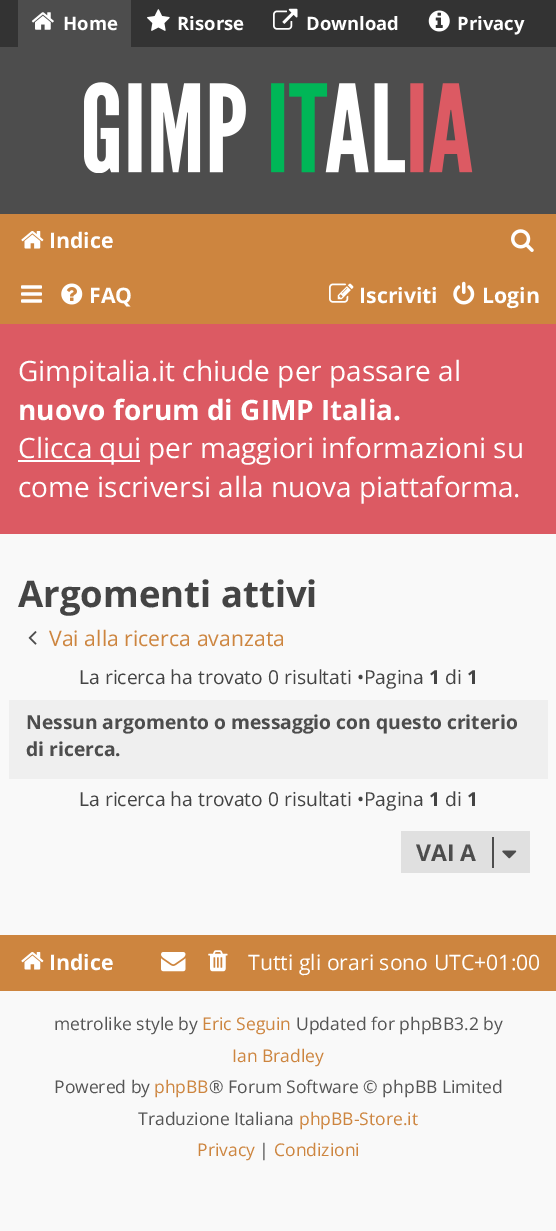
%!PS
<< /PageSize [556 1231] >> setpagedevice
/co { dup -16 bitshift 255 div exch dup -8 bitshift 255 and 255 div exch 255 and 255 div setrgbcolor } def
/fn { [ exch dup neg 0 0 3 -1 roll 0 0 ] selectfont } def
/tx { co fn moveto show } def
/bx { co rectfill } def
/im { 5 dict begin { /h /w /y /x /name } { exch def } forall
  gsave x y translate w h scale
  w h 8 [w 0 0 h 0 0] name (r) file false 3 colorimage grestore end } def
0 1231 translate 1 -1 scale
4 setmiterlimit
0 0 556 1231 16#F9F9F9 bx
0 0 556 47 16#333333 bx
18 0 113 47 16#4D4D4D bx
(media/1.raw) 31 12 23 18 im
(media/2.raw) 147 9 23 22 im
(media/3.raw) 273 8 25 22 im
(media/4.raw) 428 10 22 22 im
0 47 556 167 16#4D4D4D bx
(media/5.raw) 84 82 389 91 im
0 214 556 110 16#CD853F bx
(media/6.raw) 21 231 23 18 im
(media/7.raw) 511 229 23 23 im
(media/8.raw) 21 285 21 18 im
(media/9.raw) 61 283 22 22 im
(media/10.raw) 329 283 25 20 im
(media/11.raw) 453 281 22 24 im
0 324 556 210 16#DC5A63 bx
18 460 122 2 16#FFFFFF bx
(media/12.raw) 28 631 9 14 im
9 700 539 79 16#EFEFEF bx
401 831 129 42 16#E0E0E0 bx
492 837 2 31 16#4D4D4D bx
(media/13.raw) 502 850 15 9 im
0 935 556 56 16#CD853F bx
(media/6.raw) 21 952 23 18 im
(media/14.raw) 161 952 25 20 im
(media/15.raw) 208 950 20 22 im
(Home) 63 30 /OpenSans-Bold 18.5 16#FFFFFF tx
(Risorse) 177 30 /OpenSans-Bold 18.5 16#FFFFFF tx
(Download) 306 30 /OpenSans-Bold 18.5 16#FFFFFF tx
(Privacy) 457 30 /OpenSans-Bold 18.5 16#FFFFFF tx
(Indice) 49 248 /OpenSans-Bold 21.25 16#FFFFFF tx
(FAQ) 89 303 /OpenSans-Bold 21.25 16#FFFFFF tx
(Iscriviti) 359 303 /OpenSans-Bold 21.25 16#FFFFFF tx
(Login) 482 303 /OpenSans-Bold 21.25 16#FFFFFF tx
(Gimpitalia.it chiude per passare al) 18 381 /OpenSans-Regular 28 16#FFFFFF tx
(nuovo forum di GIMP Italia.) 18 420 /OpenSans-Bold 28 16#FFFFFF tx
(Clicca qui per maggiori informazioni su) 18 458 /OpenSans-Regular 28 16#FFFFFF tx
(come iscriversi alla nuova piattaforma.) 18 497 /OpenSans-Regular 28 16#FFFFFF tx
(Argomenti attivi) 18 607 /OpenSans-Bold 36.5 16#444444 tx
(Vai alla ricerca avanzata) 49 646 /OpenSans-Regular 21.25 16#CD853F tx
(La ricerca ha trovato 0 risultati •Pagina) 79 684 /OpenSans-Regular 19.25 16#444444 tx
(1) 429 684 /OpenSans-Bold 19.25 16#444444 tx
(di) 445 684 /OpenSans-Regular 19.25 16#444444 tx
(1) 467 684 /OpenSans-Bold 19.25 16#444444 tx
(Nessun argomento o messaggio con questo criterio) 26 729 /OpenSans-Bold 19.25 16#4D4D4D tx
(di ricerca.) 26 756 /OpenSans-Bold 19.25 16#4D4D4D tx
(La ricerca ha trovato 0 risultati •Pagina) 79 806 /OpenSans-Regular 19.25 16#444444 tx
(1) 429 806 /OpenSans-Bold 19.25 16#444444 tx
(di) 445 806 /OpenSans-Regular 19.25 16#444444 tx
(1) 467 806 /OpenSans-Bold 19.25 16#444444 tx
(VAI A) 416 861 /OpenSans-Bold 23 16#4D4D4D tx
(Indice) 49 970 /OpenSans-Bold 21.25 16#FFFFFF tx
(Tutti gli orari sono UTC+01:00) 248 970 /OpenSans-Regular 21.25 16#FFFFFF tx
(metrolike style by) 54 1030 /OpenSans-Regular 17.5 16#555555 tx
(Eric Seguin) 202 1030 /OpenSans-Regular 17.5 16#CD853F tx
(Updated for phpBB3.2 by) 296 1030 /OpenSans-Regular 17.5 16#555555 tx
(Ian Bradley) 232 1062 /OpenSans-Regular 17.5 16#CD853F tx
(Powered by) 54 1093 /OpenSans-Regular 17.5 16#555555 tx
(phpBB) 154 1093 /OpenSans-Regular 17.5 16#CD853F tx
(® Forum Software © phpBB Limited) 209 1093 /OpenSans-Regular 17.5 16#555555 tx
(Traduzione Italiana) 138 1125 /OpenSans-Regular 17.5 16#555555 tx
(phpBB-Store.it) 299 1125 /OpenSans-Regular 17.5 16#CD853F tx
(Privacy) 197 1156 /OpenSans-Regular 17.5 16#CD853F tx
(|) 259 1156 /OpenSans-Regular 17.5 16#555555 tx
(Condizioni) 274 1156 /OpenSans-Regular 17.5 16#CD853F tx
showpage
